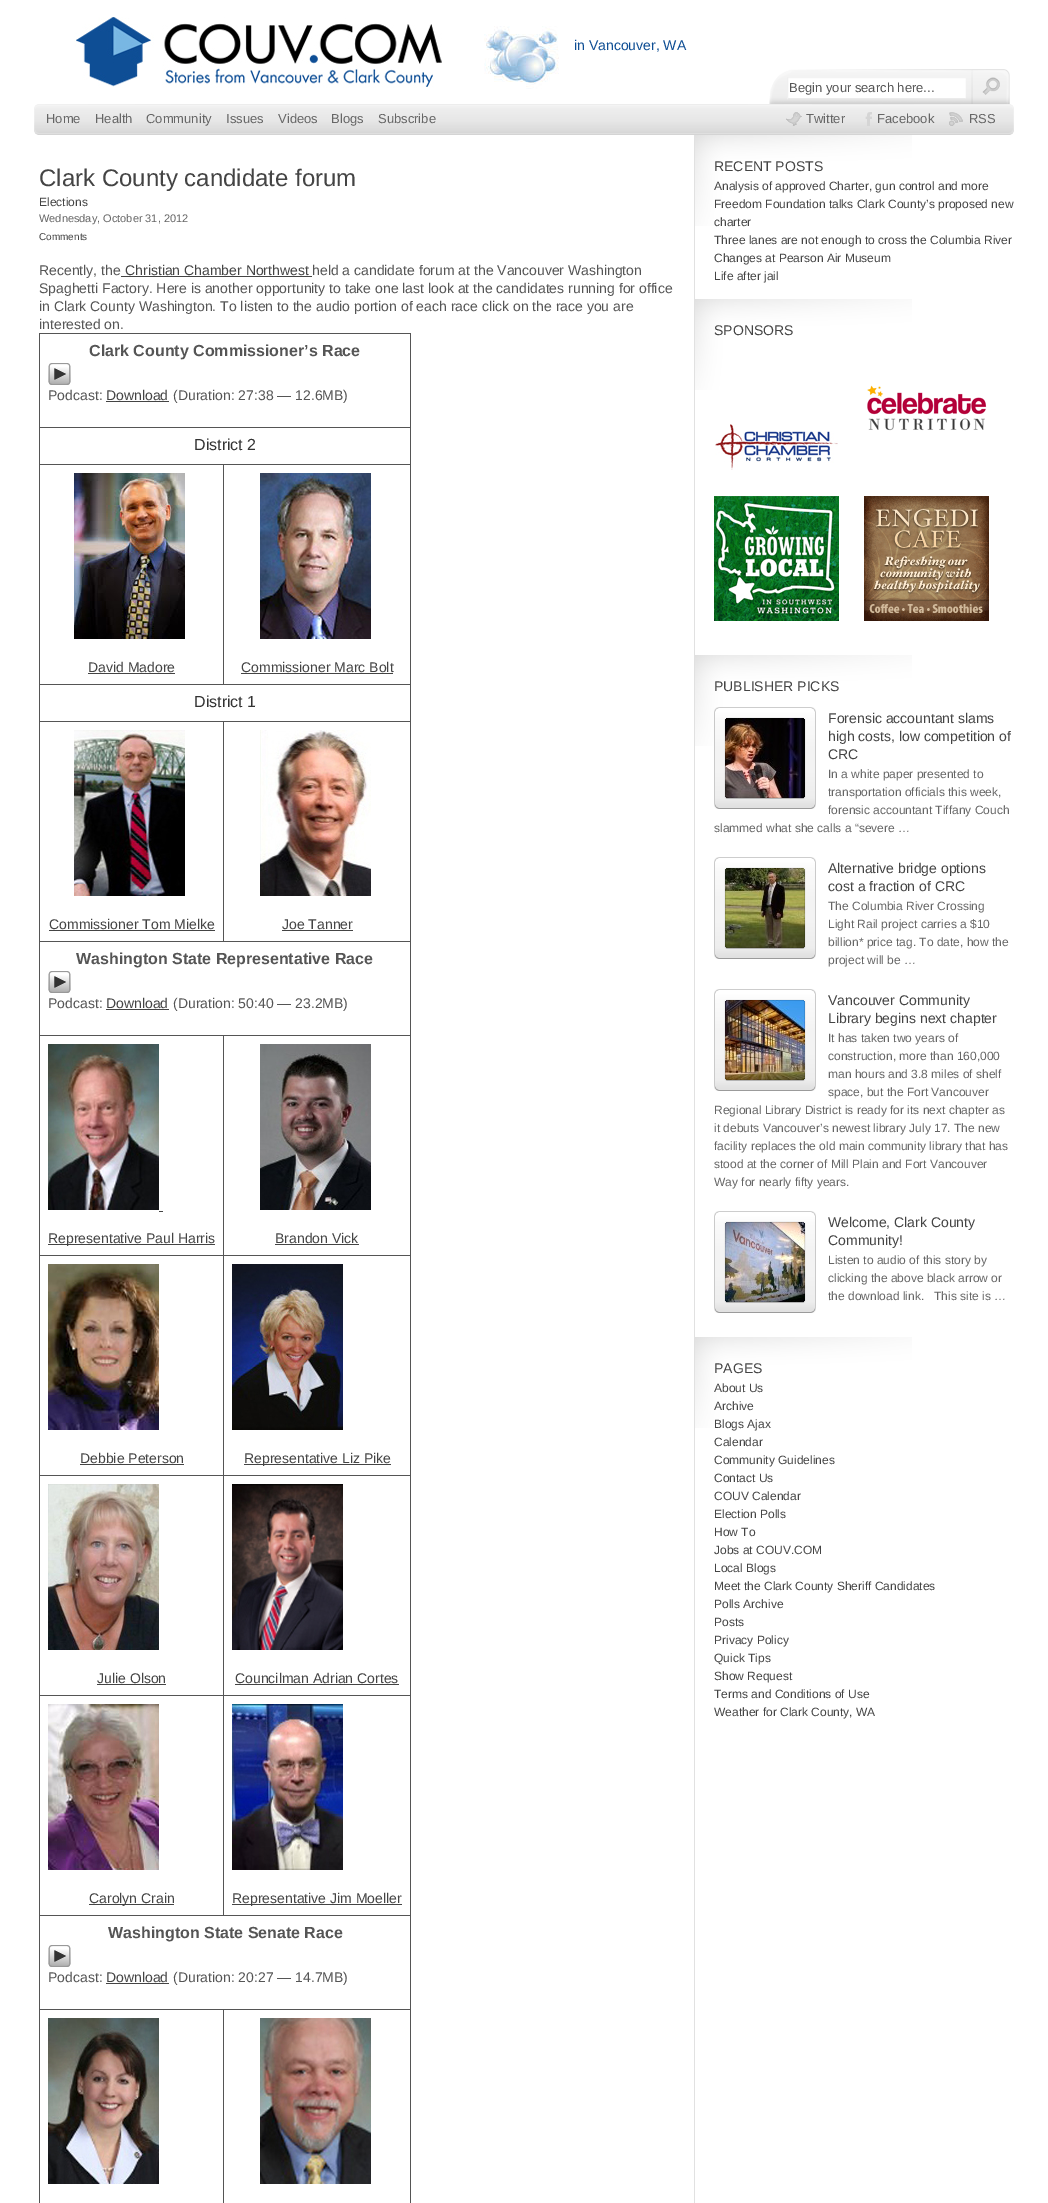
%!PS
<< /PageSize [1048 2203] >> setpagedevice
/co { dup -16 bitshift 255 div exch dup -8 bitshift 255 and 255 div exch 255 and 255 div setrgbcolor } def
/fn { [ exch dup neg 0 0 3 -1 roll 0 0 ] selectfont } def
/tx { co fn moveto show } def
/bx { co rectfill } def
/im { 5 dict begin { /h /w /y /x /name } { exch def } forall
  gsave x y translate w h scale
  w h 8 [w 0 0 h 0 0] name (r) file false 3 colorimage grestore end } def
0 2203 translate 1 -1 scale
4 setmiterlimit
0 0 1048 2203 16#FFFFFF bx
(media/1.raw) 74 17 368 71 im
(media/2.raw) 484 26 75 63 im
(media/3.raw) 769 69 241 35 im
(media/4.raw) 982 77 18 18 im
(media/5.raw) 34 104 980 31 im
(media/6.raw) 786 112 16 14 im
(media/7.raw) 865 112 7 14 im
(media/8.raw) 949 112 14 14 im
694 135 1 2068 16#E1E1E1 bx
121 276 191 1 16#444444 bx
39 333 372 1 16#555555 bx
39 427 372 1 16#555555 bx
223 464 188 1 16#555555 bx
39 684 372 1 16#555555 bx
223 721 188 1 16#555555 bx
39 941 372 1 16#555555 bx
223 1035 188 1 16#555555 bx
223 1255 188 1 16#555555 bx
223 1475 188 1 16#555555 bx
223 1695 188 1 16#555555 bx
39 1915 372 1 16#555555 bx
223 2009 188 1 16#555555 bx
410 2009 1 194 16#555555 bx
410 1915 1 95 16#555555 bx
410 1695 1 221 16#555555 bx
410 1475 1 221 16#555555 bx
410 1255 1 221 16#555555 bx
410 1035 1 221 16#555555 bx
410 941 1 95 16#555555 bx
410 721 1 221 16#555555 bx
410 684 1 38 16#555555 bx
410 464 1 221 16#555555 bx
410 427 1 38 16#555555 bx
410 333 1 95 16#555555 bx
223 464 1 221 16#555555 bx
39 464 185 1 16#555555 bx
223 721 1 221 16#555555 bx
39 721 185 1 16#555555 bx
223 1695 1 221 16#555555 bx
39 1695 185 1 16#555555 bx
223 1475 1 221 16#555555 bx
39 1475 185 1 16#555555 bx
223 1255 1 221 16#555555 bx
39 1255 185 1 16#555555 bx
223 1035 1 221 16#555555 bx
39 1035 185 1 16#555555 bx
223 2009 1 194 16#555555 bx
39 2009 185 1 16#555555 bx
39 2009 1 194 16#555555 bx
39 1915 1 95 16#555555 bx
39 1695 1 221 16#555555 bx
39 1475 1 221 16#555555 bx
39 1255 1 221 16#555555 bx
39 1035 1 221 16#555555 bx
39 941 1 95 16#555555 bx
39 721 1 221 16#555555 bx
39 684 1 38 16#555555 bx
39 464 1 221 16#555555 bx
39 427 1 38 16#555555 bx
39 333 1 95 16#555555 bx
(media/9.raw) 48 363 23 22 im
106 401 63 1 16#444444 bx
(media/10.raw) 74 473 111 166 im
88 673 87 1 16#444444 bx
(media/11.raw) 260 473 111 166 im
241 673 152 1 16#444444 bx
(media/12.raw) 74 730 111 166 im
49 930 166 1 16#444444 bx
(media/13.raw) 260 730 111 166 im
282 930 71 1 16#444444 bx
(media/9.raw) 48 971 23 22 im
106 1009 63 1 16#444444 bx
(media/14.raw) 48 1044 111 166 im
159 1211 4 1 16#444444 bx
48 1244 167 1 16#444444 bx
(media/15.raw) 260 1044 111 166 im
275 1244 84 1 16#444444 bx
(media/16.raw) 48 1264 111 166 im
80 1464 104 1 16#444444 bx
(media/17.raw) 232 1264 111 166 im
244 1464 147 1 16#444444 bx
(media/18.raw) 48 1484 111 166 im
97 1684 69 1 16#444444 bx
(media/19.raw) 232 1484 111 166 im
235 1684 164 1 16#444444 bx
(media/20.raw) 48 1704 111 166 im
89 1904 85 1 16#444444 bx
(media/21.raw) 232 1704 111 166 im
232 1904 170 1 16#444444 bx
(media/9.raw) 48 1945 23 22 im
106 1983 63 1 16#444444 bx
(media/22.raw) 48 2018 111 166 im
(media/23.raw) 260 2018 111 166 im
(media/24.raw) 695 135 217 91 im
(media/24.raw) 695 299 217 91 im
(media/25.raw) 867 385 120 46 im
(media/26.raw) 715 424 123 46 im
(media/27.raw) 714 496 125 125 im
(media/28.raw) 864 496 125 125 im
(media/24.raw) 695 655 217 91 im
(media/30.raw) 725 718 80 80 im
(media/29.raw) 714 707 102 102 im
(media/32.raw) 725 868 80 80 im
(media/31.raw) 714 857 102 102 im
(media/34.raw) 725 1000 80 80 im
(media/33.raw) 714 989 102 102 im
(media/36.raw) 725 1222 80 80 im
(media/35.raw) 714 1211 102 102 im
(media/24.raw) 695 1337 217 91 im
(in Vancouver, WA) 574 50 /LiberationSans-Regular 14 16#0E4E94 tx
(Begin your search here...) 789 92 /LiberationSans-Regular 13 16#555555 tx
(Home) 46 123 /LiberationSans-Regular 13 16#666666 tx
(Health) 95 123 /LiberationSans-Regular 13 16#666666 tx
(Community) 146 123 /LiberationSans-Regular 13 16#666666 tx
(Issues) 226 123 /LiberationSans-Regular 13 16#666666 tx
(Videos) 278 123 /LiberationSans-Regular 13 16#666666 tx
(Blogs) 331 123 /LiberationSans-Regular 13 16#666666 tx
(Subscribe) 378 123 /LiberationSans-Regular 13 16#666666 tx
(Twitter) 806 123 /LiberationSans-Regular 13 16#666666 tx
(Facebook) 877 123 /LiberationSans-Regular 13 16#666666 tx
(RSS) 969 123 /LiberationSans-Regular 13 16#666666 tx
(Clark County candidate forum) 39 186 /LiberationSans-Regular 24 16#444444 tx
(Elections) 39 206 /LiberationSans-Regular 12 16#444444 tx
(Wednesday, October 31, 2012) 39 222 /LiberationSans-Regular 11 16#666666 tx
(Comments) 39 240 /LiberationSans-Regular 10 16#444444 tx
(Recently, the) 39 275 /LiberationSans-Regular 14 16#555555 tx
(Christian Chamber Northwest) 125 275 /LiberationSans-Regular 14 16#444444 tx
(held a candidate forum at the Vancouver Washington) 312 275 /LiberationSans-Regular 14 16#555555 tx
(Spaghetti Factory. Here is another opportunity to take one last look at the candidates running for office) 39 293 /LiberationSans-Regular 14 16#555555 tx
(in Clark County Washington. To listen to the audio portion of each race click on the race you are) 39 311 /LiberationSans-Regular 14 16#555555 tx
(interested on.) 39 329 /LiberationSans-Regular 14 16#555555 tx
(Clark County Commissioner’s Race) 89 356 /LiberationSans-Bold 16 16#555555 tx
(Podcast:) 48 400 /LiberationSans-Regular 14 16#555555 tx
(Download) 106 400 /LiberationSans-Regular 14 16#444444 tx
(\(Duration: 27:38 — 12.6MB\)) 173 400 /LiberationSans-Regular 14 16#555555 tx
(District 2) 194 450 /LiberationSans-Regular 16 16#333333 tx
(David Madore) 88 672 /LiberationSans-Regular 14 16#444444 tx
(Commissioner Marc Bolt) 241 672 /LiberationSans-Regular 14 16#444444 tx
(District 1) 194 707 /LiberationSans-Regular 16 16#333333 tx
(Commissioner Tom Mielke) 49 929 /LiberationSans-Regular 14 16#444444 tx
(Joe Tanner) 282 929 /LiberationSans-Regular 14 16#444444 tx
(Washington State Representative Race) 76 964 /LiberationSans-Bold 16 16#555555 tx
(Podcast:) 48 1008 /LiberationSans-Regular 14 16#555555 tx
(Download) 106 1008 /LiberationSans-Regular 14 16#444444 tx
(\(Duration: 50:40 — 23.2MB\)) 173 1008 /LiberationSans-Regular 14 16#555555 tx
(Representative Paul Harris) 48 1243 /LiberationSans-Regular 14 16#444444 tx
(Brandon Vick) 275 1243 /LiberationSans-Regular 14 16#444444 tx
(Debbie Peterson) 80 1463 /LiberationSans-Regular 14 16#444444 tx
(Representative Liz Pike) 244 1463 /LiberationSans-Regular 14 16#444444 tx
(Julie Olson) 97 1683 /LiberationSans-Regular 14 16#444444 tx
(Councilman Adrian Cortes) 235 1683 /LiberationSans-Regular 14 16#444444 tx
(Carolyn Crain) 89 1903 /LiberationSans-Regular 14 16#444444 tx
(Representative Jim Moeller) 232 1903 /LiberationSans-Regular 14 16#444444 tx
(Washington State Senate Race) 108 1938 /LiberationSans-Bold 16 16#555555 tx
(Podcast:) 48 1982 /LiberationSans-Regular 14 16#555555 tx
(Download) 106 1982 /LiberationSans-Regular 14 16#444444 tx
(\(Duration: 20:27 — 14.7MB\)) 173 1982 /LiberationSans-Regular 14 16#555555 tx
(RECENT POSTS) 714 171 /LiberationSans-Regular 14 16#444444 tx
(Analysis of approved Charter, gun control and more) 714 190 /LiberationSans-Regular 12 16#444444 tx
(Freedom Foundation talks Clark County’s proposed new) 714 208 /LiberationSans-Regular 12 16#444444 tx
(charter) 714 226 /LiberationSans-Regular 12 16#444444 tx
(Three lanes are not enough to cross the Columbia River) 714 244 /LiberationSans-Regular 12 16#444444 tx
(Changes at Pearson Air Museum) 714 262 /LiberationSans-Regular 12 16#444444 tx
(Life after jail) 714 280 /LiberationSans-Regular 12 16#444444 tx
(SPONSORS) 714 335 /LiberationSans-Regular 14 16#444444 tx
(PUBLISHER PICKS) 714 691 /LiberationSans-Regular 14 16#444444 tx
(Forensic accountant slams) 828 723 /LiberationSans-Regular 14 16#444444 tx
(high costs, low competition of) 828 741 /LiberationSans-Regular 14 16#444444 tx
(CRC) 828 759 /LiberationSans-Regular 14 16#444444 tx
(In a white paper presented to) 828 778 /LiberationSans-Regular 12 16#666666 tx
(transportation officials this week,) 828 796 /LiberationSans-Regular 12 16#666666 tx
(forensic accountant Tiffany Couch) 828 814 /LiberationSans-Regular 12 16#666666 tx
(slammed what she calls a “severe …) 714 832 /LiberationSans-Regular 12 16#666666 tx
(Alternative bridge options) 828 873 /LiberationSans-Regular 14 16#444444 tx
(cost a fraction of CRC) 828 891 /LiberationSans-Regular 14 16#444444 tx
(The Columbia River Crossing) 828 910 /LiberationSans-Regular 12 16#666666 tx
(Light Rail project carries a $10) 828 928 /LiberationSans-Regular 12 16#666666 tx
(billion* price tag. To date, how the) 828 946 /LiberationSans-Regular 12 16#666666 tx
(project will be …) 828 964 /LiberationSans-Regular 12 16#666666 tx
(Vancouver Community) 828 1005 /LiberationSans-Regular 14 16#444444 tx
(Library begins next chapter) 828 1023 /LiberationSans-Regular 14 16#444444 tx
(It has taken two years of) 828 1042 /LiberationSans-Regular 12 16#666666 tx
(construction, more than 160,000) 828 1060 /LiberationSans-Regular 12 16#666666 tx
(man hours and 3.8 miles of shelf) 828 1078 /LiberationSans-Regular 12 16#666666 tx
(space, but the Fort Vancouver) 828 1096 /LiberationSans-Regular 12 16#666666 tx
(Regional Library District is ready for its next chapter as) 714 1114 /LiberationSans-Regular 12 16#666666 tx
(it debuts Vancouver’s newest library July 17. The new) 714 1132 /LiberationSans-Regular 12 16#666666 tx
(facility replaces the old main community library that has) 714 1150 /LiberationSans-Regular 12 16#666666 tx
(stood at the corner of Mill Plain and Fort Vancouver) 714 1168 /LiberationSans-Regular 12 16#666666 tx
(Way for nearly fifty years.) 714 1186 /LiberationSans-Regular 12 16#666666 tx
(Welcome, Clark County) 828 1227 /LiberationSans-Regular 14 16#444444 tx
(Community!) 828 1245 /LiberationSans-Regular 14 16#444444 tx
(Listen to audio of this story by) 828 1264 /LiberationSans-Regular 12 16#666666 tx
(clicking the above black arrow or) 828 1282 /LiberationSans-Regular 12 16#666666 tx
(the download link.   This site is …) 828 1300 /LiberationSans-Regular 12 16#666666 tx
(PAGES) 714 1373 /LiberationSans-Regular 14 16#444444 tx
(About Us) 714 1392 /LiberationSans-Regular 12 16#444444 tx
(Archive) 714 1410 /LiberationSans-Regular 12 16#444444 tx
(Blogs Ajax) 714 1428 /LiberationSans-Regular 12 16#444444 tx
(Calendar) 714 1446 /LiberationSans-Regular 12 16#444444 tx
(Community Guidelines) 714 1464 /LiberationSans-Regular 12 16#444444 tx
(Contact Us) 714 1482 /LiberationSans-Regular 12 16#444444 tx
(COUV Calendar) 714 1500 /LiberationSans-Regular 12 16#444444 tx
(Election Polls) 714 1518 /LiberationSans-Regular 12 16#444444 tx
(How To) 714 1536 /LiberationSans-Regular 12 16#444444 tx
(Jobs at COUV.COM) 714 1554 /LiberationSans-Regular 12 16#444444 tx
(Local Blogs) 714 1572 /LiberationSans-Regular 12 16#444444 tx
(Meet the Clark County Sheriff Candidates) 714 1590 /LiberationSans-Regular 12 16#444444 tx
(Polls Archive) 714 1608 /LiberationSans-Regular 12 16#444444 tx
(Posts) 714 1626 /LiberationSans-Regular 12 16#444444 tx
(Privacy Policy) 714 1644 /LiberationSans-Regular 12 16#444444 tx
(Quick Tips) 714 1662 /LiberationSans-Regular 12 16#444444 tx
(Show Request) 714 1680 /LiberationSans-Regular 12 16#444444 tx
(Terms and Conditions of Use) 714 1698 /LiberationSans-Regular 12 16#444444 tx
(Weather for Clark County, WA) 714 1716 /LiberationSans-Regular 12 16#444444 tx
showpage
